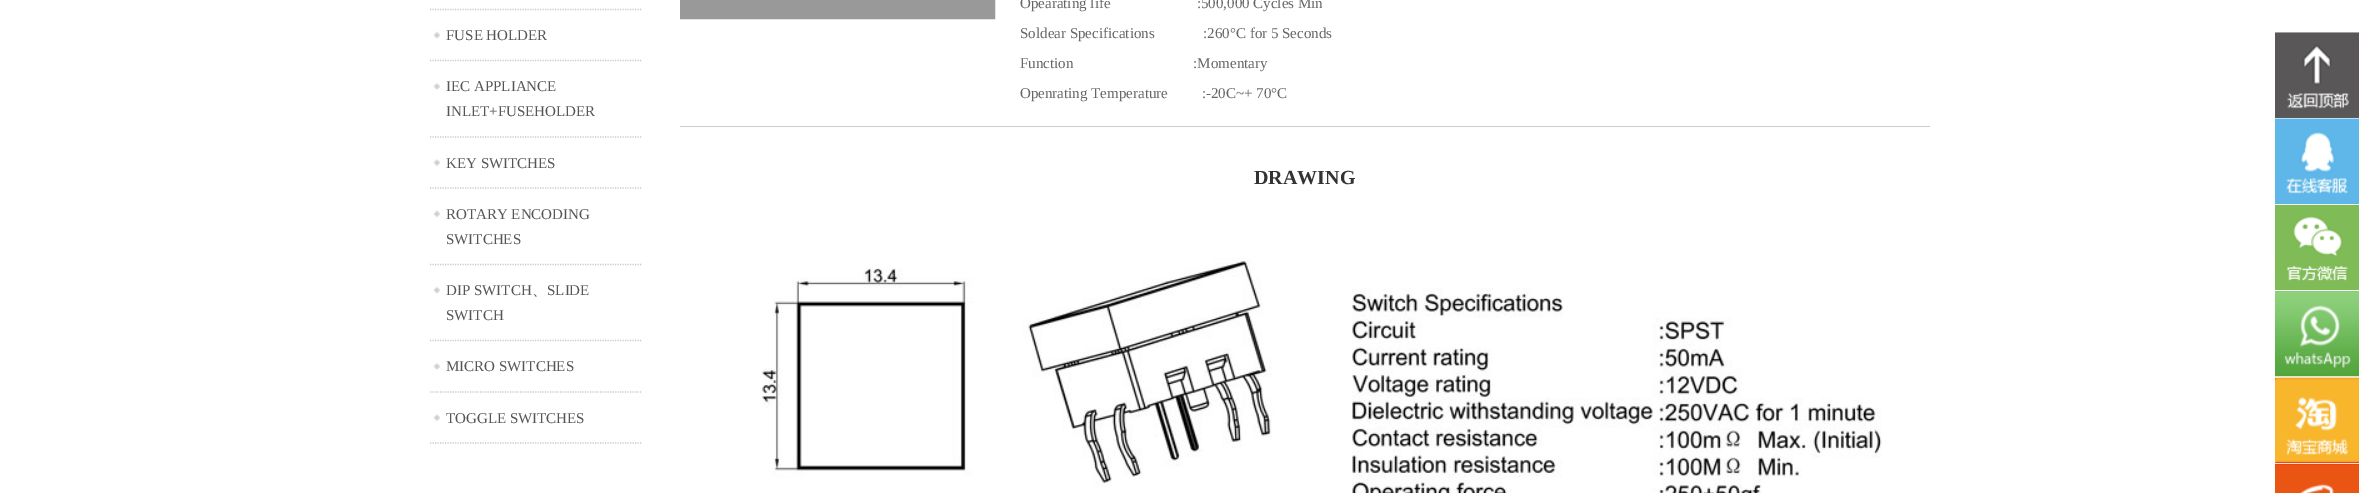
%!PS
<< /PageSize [2359 493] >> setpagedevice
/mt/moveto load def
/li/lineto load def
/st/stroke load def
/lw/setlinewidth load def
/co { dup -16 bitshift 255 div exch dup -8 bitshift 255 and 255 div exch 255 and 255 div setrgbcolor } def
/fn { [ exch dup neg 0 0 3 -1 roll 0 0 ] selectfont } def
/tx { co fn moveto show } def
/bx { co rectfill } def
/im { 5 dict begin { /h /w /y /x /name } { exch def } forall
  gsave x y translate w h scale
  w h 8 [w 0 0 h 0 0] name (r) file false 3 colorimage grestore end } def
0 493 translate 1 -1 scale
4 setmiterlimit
0 0 2359 493 16#FFFFFF bx
16#CBCBCB co
1.2 lw
[1.25 1.25] 0 setdash
430 9.5 mt 642.5 9.5 li st
(media/1.raw) 433 31 7 8 im
430 60.5 mt 642.5 60.5 li st
(media/2.raw) 433 83 7 7 im
430 137 mt 642.5 137 li st
(media/3.raw) 433 159 7 8 im
430 188 mt 642.5 188 li st
(media/4.raw) 433 210 7 8 im
430 264.5 mt 642.5 264.5 li st
(media/1.raw) 433 286 7 8 im
430 340.5 mt 642.5 340.5 li st
(media/2.raw) 433 363 7 7 im
430 392 mt 642.5 392 li st
(media/3.raw) 433 414 7 8 im
430 443 mt 642.5 443 li st
16#999999 co
1 lw
[] 0 setdash
680.5 -.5 314 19 rectstroke
681 0 313 18 16#999999 bx
680 126 1250 1 16#CCCCCC bx
(media/5.raw) 762 258 1120 235 im
2275 33 84 85 16#606060 bx
(media/6.raw) 2275 32 84 87 im
2275 119 84 85 16#5EB7E8 bx
(media/7.raw) 2275 118 84 87 im
2275 205 84 85 16#7FBB57 bx
(media/8.raw) 2275 204 84 86 im
(media/9.raw) 2275 291 84 86 im
2275 378 84 85 16#E60012 bx
(media/10.raw) 2275 377 84 86 im
(media/11.raw) 2275 463 84 30 im
(FUSE HOLDER) 446 40 /LiberationSerif-Regular 15 16#555555 tx
(IEC APPLIANCE) 446 91 /LiberationSerif-Regular 15 16#555555 tx
(INLET+FUSEHOLDER) 446 116 /LiberationSerif-Regular 15 16#555555 tx
(KEY SWITCHES) 446 168 /LiberationSerif-Regular 15 16#555555 tx
(ROTARY ENCODING) 446 219 /LiberationSerif-Regular 15 16#555555 tx
(SWITCHES) 446 244 /LiberationSerif-Regular 15 16#555555 tx
(DIP SWITCH) 446 295 /LiberationSerif-Regular 15 16#555555 tx
(、) 532 295 /WenQuanYiZenHei-Medium 15 16#555555 tx
(SLIDE) 547 295 /LiberationSerif-Regular 15 16#555555 tx
(SWITCH) 446 320 /LiberationSerif-Regular 15 16#555555 tx
(MICRO SWITCHES) 446 371 /LiberationSerif-Regular 15 16#555555 tx
(TOGGLE SWITCHES) 446 423 /LiberationSerif-Regular 15 16#555555 tx
(Opearating life                       :500,000 Cycles Min) 1020 8 /LiberationSerif-Regular 15 16#666666 tx
(Soldear Specifications             :260°C for 5 Seconds) 1020 38 /LiberationSerif-Regular 15 16#666666 tx
(Function                                :Momentary) 1020 68 /LiberationSerif-Regular 15 16#666666 tx
(Openrating Temperature         :-20C~+ 70°C) 1020 98 /LiberationSerif-Regular 15 16#666666 tx
(DRAWING) 1254 184 /LiberationSerif-Bold 20 16#333333 tx
showpage
